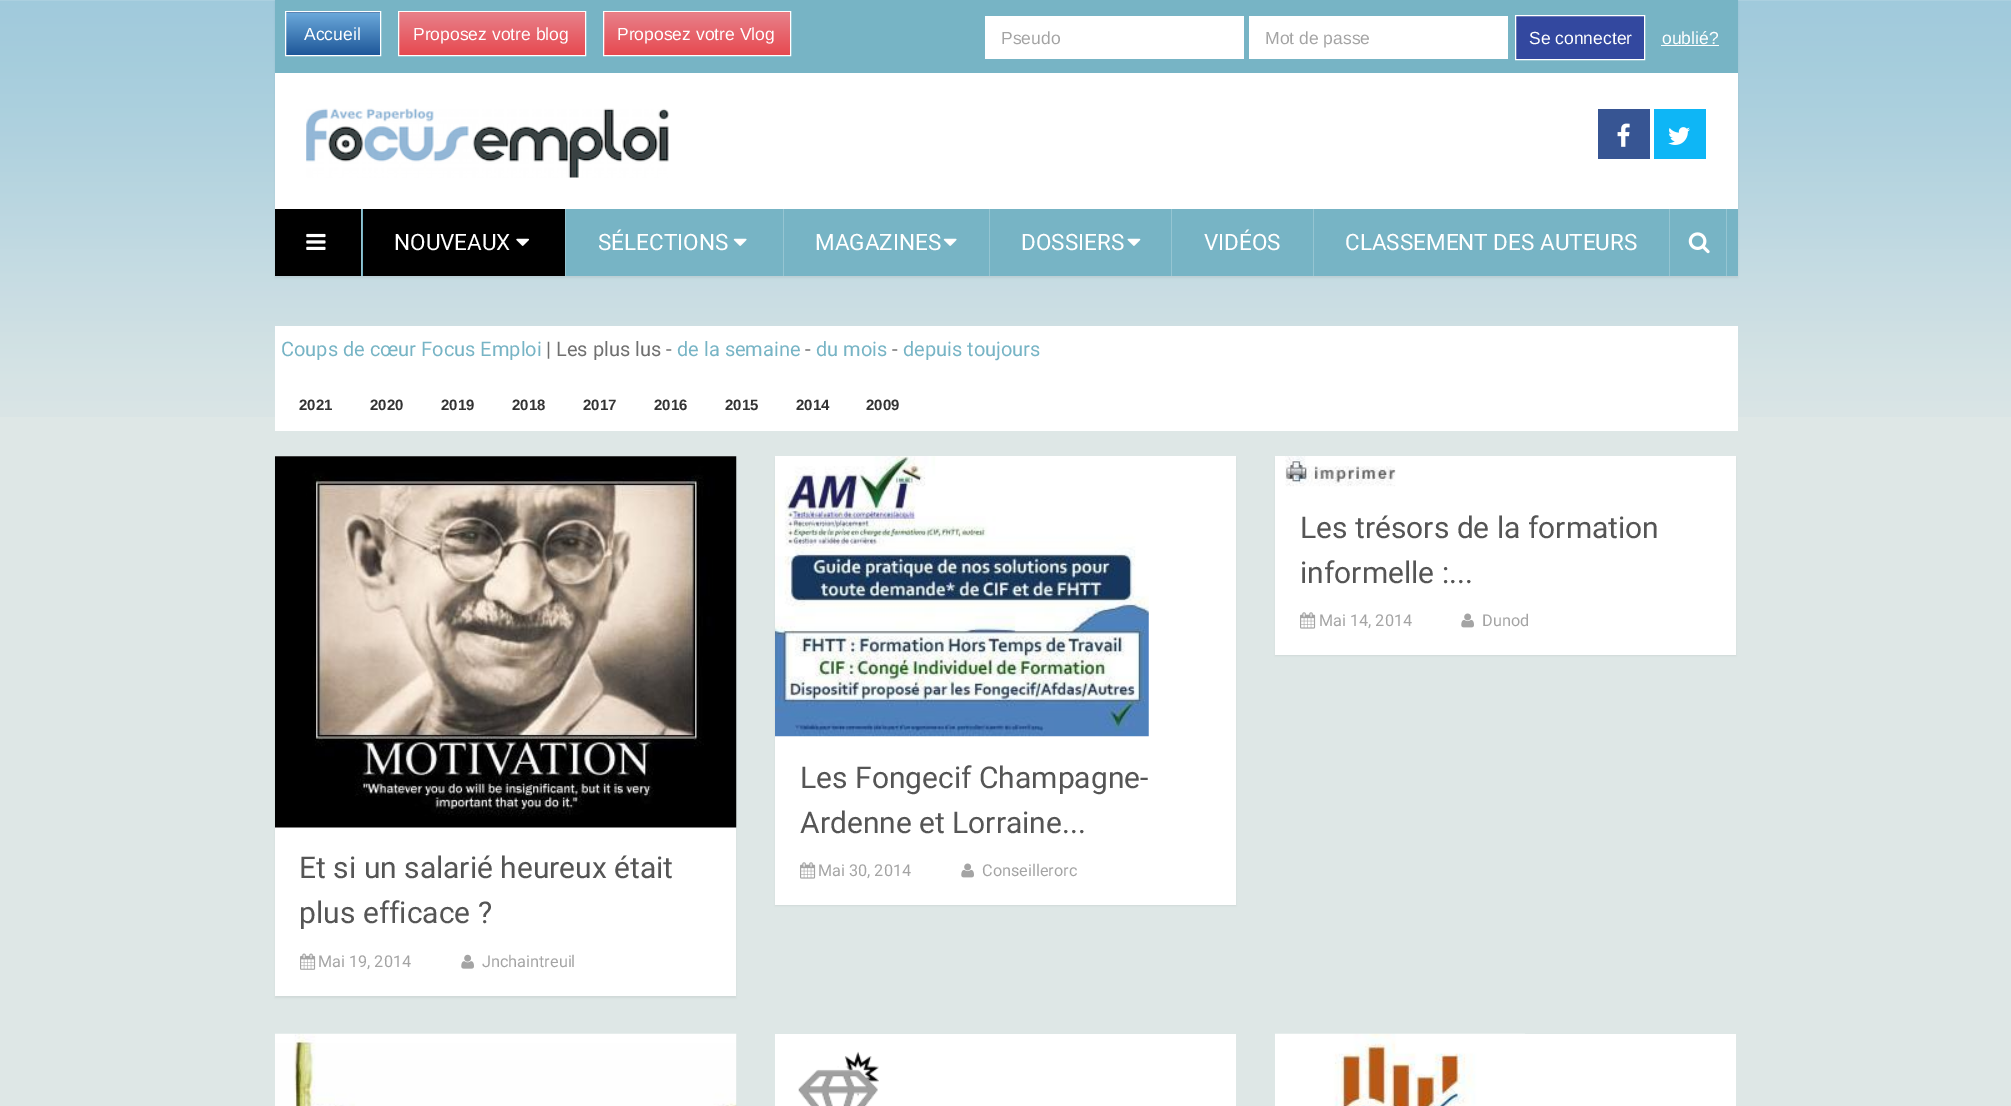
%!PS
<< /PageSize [2011 1106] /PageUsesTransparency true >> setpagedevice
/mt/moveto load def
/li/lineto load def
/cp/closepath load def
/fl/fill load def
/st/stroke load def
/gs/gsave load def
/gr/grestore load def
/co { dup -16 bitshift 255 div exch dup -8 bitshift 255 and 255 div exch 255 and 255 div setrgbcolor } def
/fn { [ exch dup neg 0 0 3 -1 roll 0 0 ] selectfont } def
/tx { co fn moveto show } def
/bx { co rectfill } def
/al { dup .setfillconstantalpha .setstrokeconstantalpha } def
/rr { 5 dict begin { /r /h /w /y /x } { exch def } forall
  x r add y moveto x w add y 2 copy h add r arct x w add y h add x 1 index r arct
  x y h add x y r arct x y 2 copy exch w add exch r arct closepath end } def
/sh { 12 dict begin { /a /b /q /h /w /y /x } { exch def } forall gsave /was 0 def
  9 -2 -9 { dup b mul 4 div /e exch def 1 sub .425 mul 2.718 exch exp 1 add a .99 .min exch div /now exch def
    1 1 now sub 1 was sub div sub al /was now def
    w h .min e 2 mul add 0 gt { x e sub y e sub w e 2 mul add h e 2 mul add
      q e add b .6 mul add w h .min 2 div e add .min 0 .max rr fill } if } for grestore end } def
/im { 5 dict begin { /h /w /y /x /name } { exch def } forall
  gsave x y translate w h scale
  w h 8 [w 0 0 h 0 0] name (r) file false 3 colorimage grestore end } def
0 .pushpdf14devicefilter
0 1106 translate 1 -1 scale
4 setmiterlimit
0 0 2011 1106 16#DEE7E6 bx
(media/1.raw) 0 0 2011 417 im
16#000000 co
275 1 1463 277 0 1 .05 sh
275 73 1463 136 16#FFFFFF bx
275 0 1463 73 16#77B4C5 bx
gs 285 12 mt 381 12 li 381 13 li 285 13 li cp clip newpath
<< /ShadingType 2 /ColorSpace /DeviceRGB /Coords [333 -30 333 13] /Extend [true true] /Function << /FunctionType 2 /Domain [0 1] /C0 [.424 .667 .859] /C1 [.118 .341 .6] /N 1 >> >> shfill gr
gs 286 13 mt 380 13 li 380 55 li 286 55 li cp clip newpath
<< /ShadingType 2 /ColorSpace /DeviceRGB /Coords [333 12 333 55] /Extend [true true] /Function << /FunctionType 2 /Domain [0 1] /C0 [.424 .667 .859] /C1 [.118 .341 .6] /N 1 >> >> shfill gr
16#FFFFFF co
285.5 11.5 95 44 rectstroke
gs 398 12 mt 586 12 li 586 13 li 398 13 li cp clip newpath
<< /ShadingType 2 /ColorSpace /DeviceRGB /Coords [492 -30 492 13] /Extend [true true] /Function << /FunctionType 2 /Domain [0 1] /C0 [.91 .506 .541] /C1 [.906 .286 .314] /N 1 >> >> shfill gr
gs 399 13 mt 585 13 li 585 55 li 399 55 li cp clip newpath
<< /ShadingType 2 /ColorSpace /DeviceRGB /Coords [492 12 492 55] /Extend [true true] /Function << /FunctionType 2 /Domain [0 1] /C0 [.91 .506 .541] /C1 [.906 .286 .314] /N 1 >> >> shfill gr
398.5 11.5 187 44 rectstroke
gs 603 12 mt 791 12 li 791 13 li 603 13 li cp clip newpath
<< /ShadingType 2 /ColorSpace /DeviceRGB /Coords [697 -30 697 13] /Extend [true true] /Function << /FunctionType 2 /Domain [0 1] /C0 [.91 .506 .541] /C1 [.906 .286 .314] /N 1 >> >> shfill gr
gs 604 13 mt 790 13 li 790 55 li 604 55 li cp clip newpath
<< /ShadingType 2 /ColorSpace /DeviceRGB /Coords [697 12 697 55] /Extend [true true] /Function << /FunctionType 2 /Domain [0 1] /C0 [.91 .506 .541] /C1 [.906 .286 .314] /N 1 >> >> shfill gr
603.5 11.5 187 44 rectstroke
985 16 259 43 16#FFFFFF bx
1249 16 259 43 16#FFFFFF bx
16#33489F co
1515.5 15.5 mt 1644.5 15.5 li 1644.5 59.5 li 1515.5 59.5 li cp gs fl gr
16#FFFFFF co
st
1661 45 58 1 16#FFFFFF bx
(media/2.raw) 306 108 363 70 im
1598 109 52 50 16#375593 bx
(media/3.raw) 1617 123 13 24 im
1654 109 52 50 16#0EB6F6 bx
(media/4.raw) 1668 127 22 18 im
362 209 1376 67 16#77B4C5 bx
361 209 1 67 16#95C5D2 bx
275 209 86 67 16#000000 bx
(media/5.raw) 306 233 20 17 im
565 209 1 67 16#95C5D2 bx
363 209 202 67 16#000000 bx
(media/6.raw) 516 238 14 8 im
783 209 1 67 16#95C5D2 bx
(media/7.raw) 733 238 14 8 im
989 209 1 67 16#95C5D2 bx
(media/7.raw) 943 238 14 8 im
1171 209 1 67 16#95C5D2 bx
(media/8.raw) 1127 238 14 8 im
1313 209 1 67 16#95C5D2 bx
1669 209 1 67 16#95C5D2 bx
1726 209 1 67 16#95C5D2 bx
(media/9.raw) 1688 232 22 22 im
275 326 1463 105 16#FFFFFF bx
16#000000 co
1275 458 461 198 0 1 .05 sh
1275 456 461 199 16#FFFFFF bx
(media/10.raw) 1285 456 111 31 im
(media/11.raw) 1300 612 16 17 im
(media/12.raw) 1461 613 13 15 im
16#000000 co
775 458 461 448 0 1 .05 sh
775 456 461 449 16#FFFFFF bx
(media/13.raw) 775 456 374 281 im
(media/11.raw) 800 862 16 17 im
(media/12.raw) 961 863 13 15 im
16#000000 co
275 458 461 540 0 1 .05 sh
275 456 461 540 16#FFFFFF bx
(media/14.raw) 275 456 462 372 im
(media/15.raw) 300 953 16 17 im
(media/16.raw) 461 954 13 15 im
(media/17.raw) 275 1033 462 73 im
775 1034 461 72 16#FFFFFF bx
(media/18.raw) 798 1051 81 55 im
1525 1034 211 72 16#FFFFFF bx
(media/19.raw) 1275 1033 250 73 im
(Accueil) 304 40 /LiberationSans-Regular 17.5 16#FFFFFF tx
(Proposez votre blog) 413 40 /LiberationSans-Regular 17.5 16#FFFFFF tx
(Proposez votre Vlog) 617 40 /LiberationSans-Regular 17.5 16#FFFFFF tx
(Pseudo) 1001 44 /LiberationSans-Regular 17.5 16#A4A4A4 tx
(Mot de passe) 1265 44 /LiberationSans-Regular 17.5 16#A4A4A4 tx
(Se connecter) 1529 44 /LiberationSans-Regular 17.5 16#FFFFFF tx
(oublié?) 1662 44 /LiberationSans-Regular 17.5 16#FFFFFF tx
(NOUVEAUX) 394 250 /Roboto-Regular 22.5 16#FFFFFF tx
(SÉLECTIONS) 598 250 /Roboto-Regular 22.5 16#FFFFFF tx
(MAGAZINES) 815 250 /Roboto-Regular 22.5 16#FFFFFF tx
(DOSSIERS) 1021 250 /Roboto-Regular 22.5 16#FFFFFF tx
(VIDÉOS) 1204 250 /Roboto-Regular 22.5 16#FFFFFF tx
(CLASSEMENT DES AUTEURS) 1345 250 /Roboto-Regular 22.5 16#FFFFFF tx
(Coups de cœur Focus Emploi) 281 356 /Roboto-Regular 20 16#77B4C5 tx
(| Les plus lus -) 546 356 /Roboto-Regular 20 16#707070 tx
(de la semaine) 677 356 /Roboto-Regular 20 16#77B4C5 tx
(-) 805 356 /Roboto-Regular 20 16#707070 tx
(du mois) 816 356 /Roboto-Regular 20 16#77B4C5 tx
(-) 892 356 /Roboto-Regular 20 16#707070 tx
(depuis toujours) 903 356 /Roboto-Regular 20 16#77B4C5 tx
(2021) 299 410 /LiberationSans-Bold 15 16#333333 tx
(2020) 370 410 /LiberationSans-Bold 15 16#333333 tx
(2019) 441 410 /LiberationSans-Bold 15 16#333333 tx
(2018) 512 410 /LiberationSans-Bold 15 16#333333 tx
(2017) 583 410 /LiberationSans-Bold 15 16#333333 tx
(2016) 654 410 /LiberationSans-Bold 15 16#333333 tx
(2015) 725 410 /LiberationSans-Bold 15 16#333333 tx
(2014) 796 410 /LiberationSans-Bold 15 16#333333 tx
(2009) 866 410 /LiberationSans-Bold 15 16#333333 tx
(Les trésors de la formation) 1300 538 /Roboto-Regular 30 16#555555 tx
(informelle :...) 1300 583 /Roboto-Regular 30 16#555555 tx
(Mai 14, 2014) 1319 626 /Roboto-Regular 16.25 16#A4A4A4 tx
(Dunod) 1482 626 /Roboto-Regular 16.25 16#A4A4A4 tx
(Les Fongecif Champagne-) 800 788 /Roboto-Regular 30 16#555555 tx
(Ardenne et Lorraine...) 800 833 /Roboto-Regular 30 16#555555 tx
(Mai 30, 2014) 818 876 /Roboto-Regular 16.25 16#A4A4A4 tx
(Conseillerorc) 982 876 /Roboto-Regular 16.25 16#A4A4A4 tx
(Et si un salarié heureux était) 299 878 /Roboto-Regular 30 16#555555 tx
(plus efficace ?) 299 923 /Roboto-Regular 30 16#555555 tx
(Mai 19, 2014) 318 967 /Roboto-Regular 16.25 16#A4A4A4 tx
(Jnchaintreuil) 482 967 /Roboto-Regular 16.25 16#A4A4A4 tx
.poppdf14devicefilter showpage
